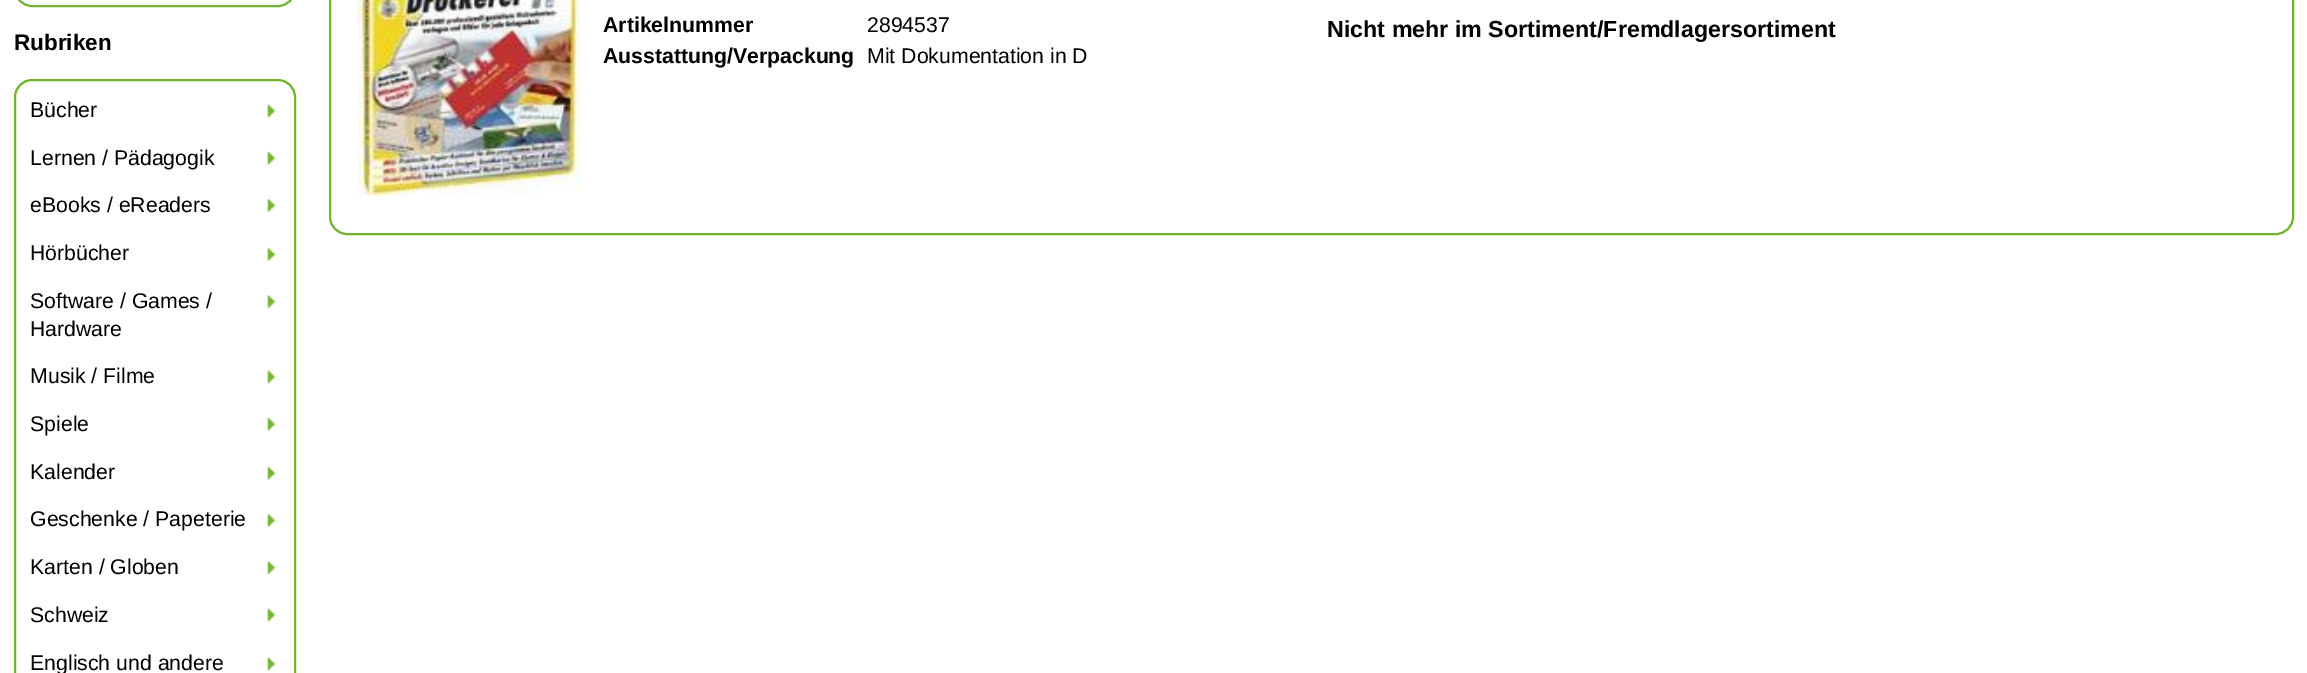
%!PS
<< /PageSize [2307 673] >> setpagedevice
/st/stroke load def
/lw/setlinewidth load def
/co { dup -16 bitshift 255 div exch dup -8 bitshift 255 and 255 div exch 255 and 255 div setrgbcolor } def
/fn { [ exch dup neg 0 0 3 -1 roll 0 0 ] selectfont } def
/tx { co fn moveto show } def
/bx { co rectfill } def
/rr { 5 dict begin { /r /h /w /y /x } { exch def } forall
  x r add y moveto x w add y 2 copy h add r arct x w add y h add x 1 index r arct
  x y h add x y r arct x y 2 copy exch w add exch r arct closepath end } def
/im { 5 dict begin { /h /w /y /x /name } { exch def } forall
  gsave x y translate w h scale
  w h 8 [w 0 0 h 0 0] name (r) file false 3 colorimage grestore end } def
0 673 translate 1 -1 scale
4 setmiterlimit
0 0 2307 673 16#FFFFFF bx
16#72B42D co
2 lw
15 -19 280 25 17 rr st
15 80 280 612 17 rr st
(media/1.raw) 267 104 9 14 im
(media/2.raw) 267 151 9 14 im
(media/3.raw) 267 198 9 14 im
(media/3.raw) 267 247 9 14 im
(media/4.raw) 267 295 9 14 im
(media/1.raw) 267 370 9 14 im
(media/2.raw) 267 417 9 14 im
(media/2.raw) 267 466 9 14 im
(media/3.raw) 267 513 9 14 im
(media/4.raw) 267 561 9 14 im
(media/1.raw) 267 608 9 14 im
(media/1.raw) 267 657 9 14 im
330 -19 1963 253 17 rr st
(media/5.raw) 357 0 224 196 im
(Rubriken) 14 50 /LiberationSans-Bold 22.5 16#000000 tx
(Bücher) 30 117 /LiberationSans-Regular 21.25 16#000000 tx
(Lernen / Pädagogik) 30 165 /LiberationSans-Regular 21.25 16#000000 tx
(eBooks / eReaders) 30 212 /LiberationSans-Regular 21.25 16#000000 tx
(Hörbücher) 30 260 /LiberationSans-Regular 21.25 16#000000 tx
(Software / Games /) 30 308 /LiberationSans-Regular 21.25 16#000000 tx
(Hardware) 30 336 /LiberationSans-Regular 21.25 16#000000 tx
(Musik / Filme) 30 383 /LiberationSans-Regular 21.25 16#000000 tx
(Spiele) 30 431 /LiberationSans-Regular 21.25 16#000000 tx
(Kalender) 30 479 /LiberationSans-Regular 21.25 16#000000 tx
(Geschenke / Papeterie) 30 526 /LiberationSans-Regular 21.25 16#000000 tx
(Karten / Globen) 30 574 /LiberationSans-Regular 21.25 16#000000 tx
(Schweiz) 30 622 /LiberationSans-Regular 21.25 16#000000 tx
(Englisch und andere) 30 670 /LiberationSans-Regular 21.25 16#000000 tx
(Artikelnummer) 603 32 /LiberationSans-Bold 21.25 16#000000 tx
(2894537) 867 32 /LiberationSans-Regular 21.25 16#000000 tx
(Ausstattung/Verpackung) 603 63 /LiberationSans-Bold 21.25 16#000000 tx
(Mit Dokumentation in D) 867 63 /LiberationSans-Regular 21.25 16#000000 tx
(Nicht mehr im Sortiment/Fremdlagersortiment) 1327 37 /LiberationSans-Bold 23.25 16#000000 tx
showpage
